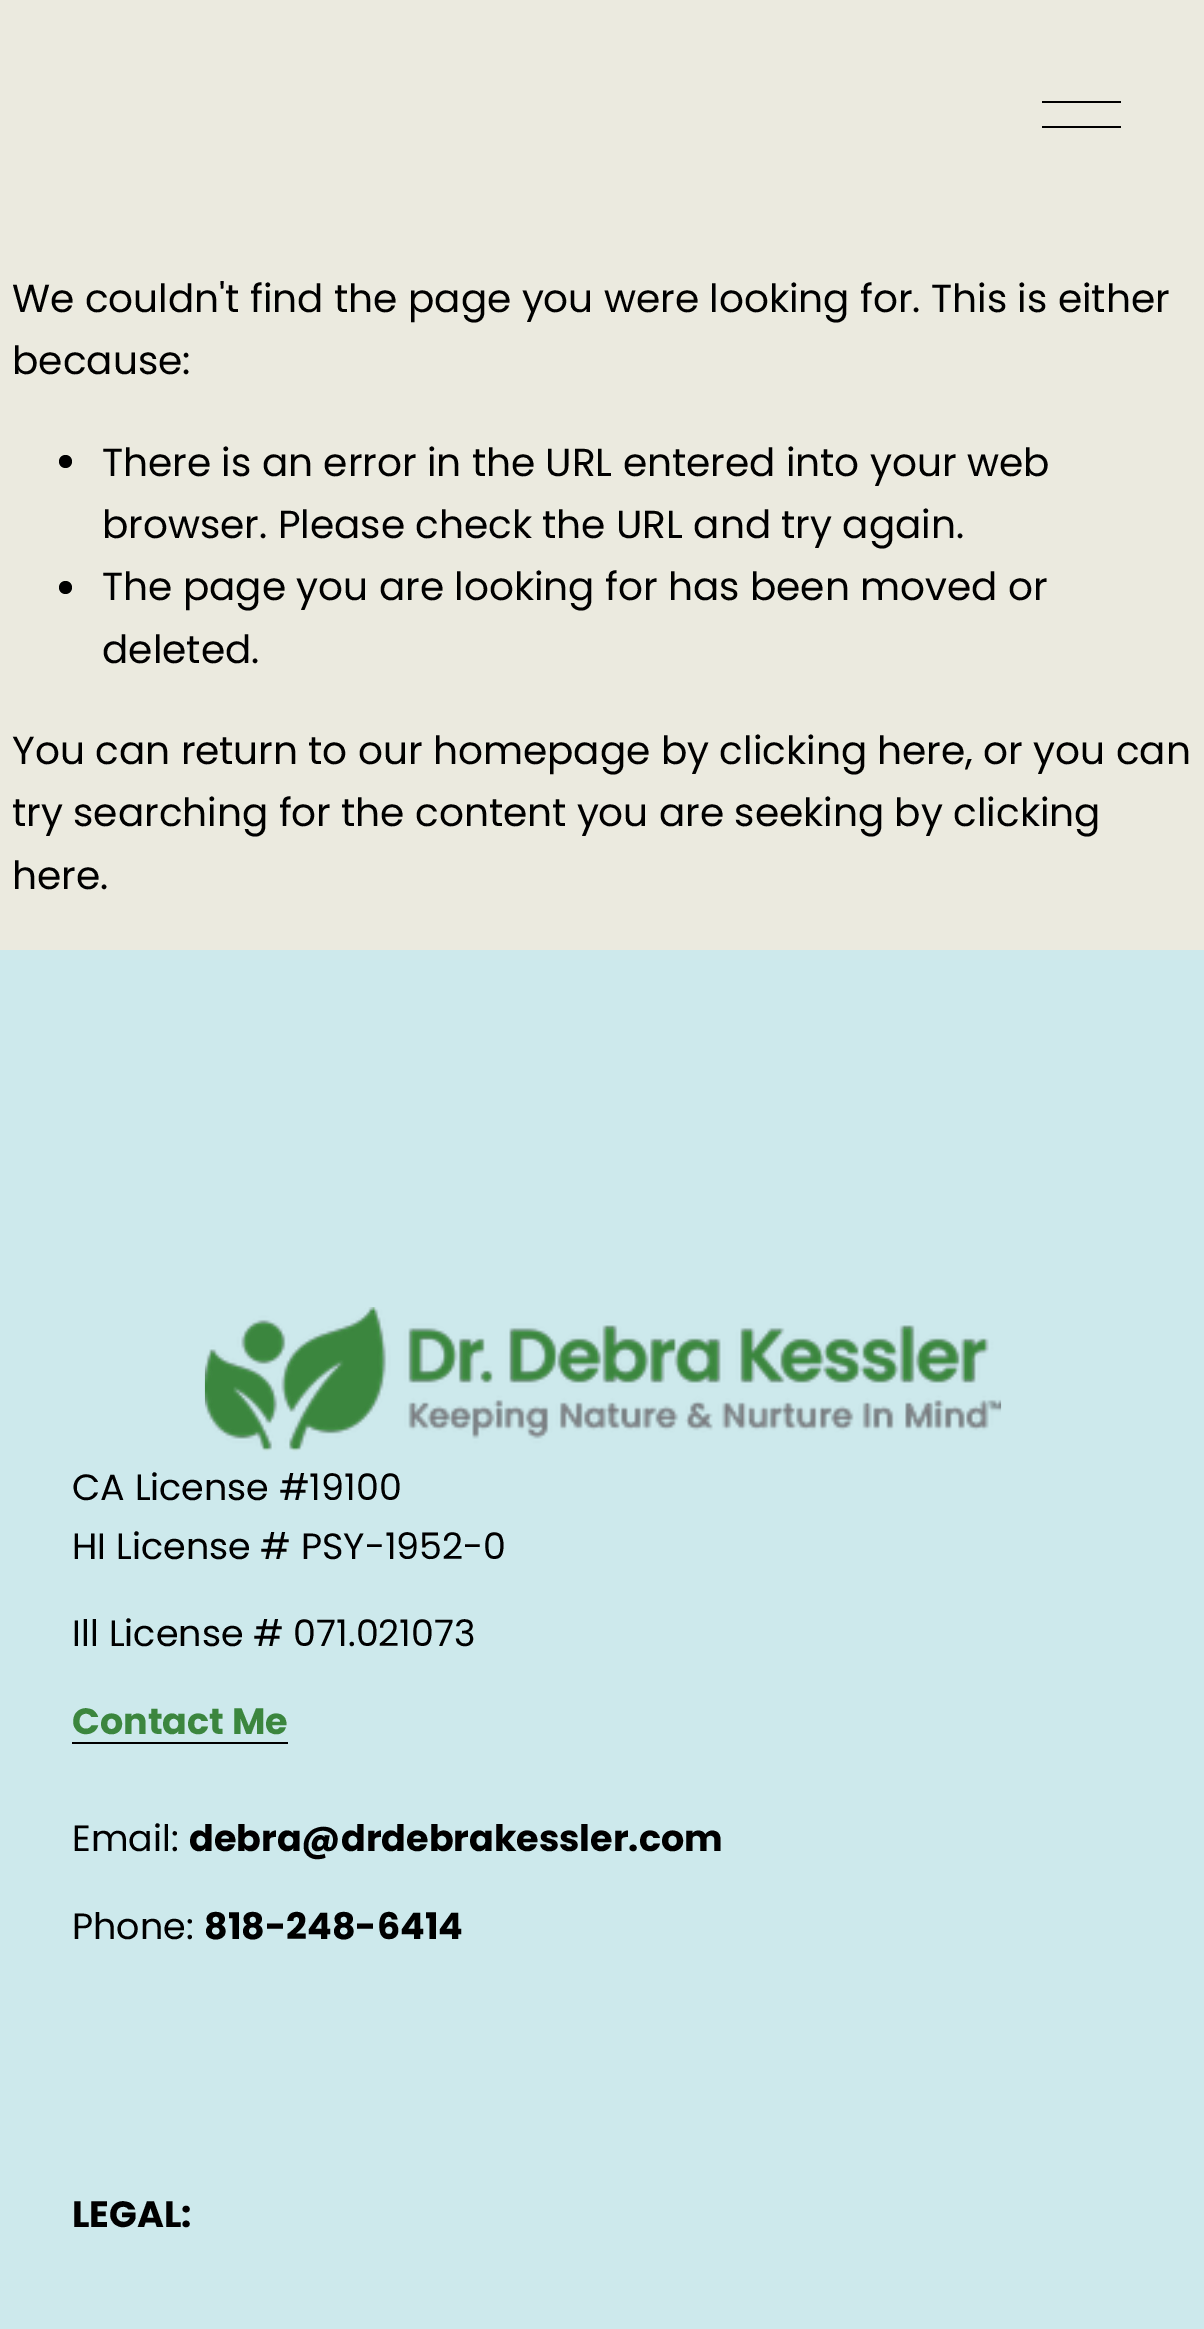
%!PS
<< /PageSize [1204 2329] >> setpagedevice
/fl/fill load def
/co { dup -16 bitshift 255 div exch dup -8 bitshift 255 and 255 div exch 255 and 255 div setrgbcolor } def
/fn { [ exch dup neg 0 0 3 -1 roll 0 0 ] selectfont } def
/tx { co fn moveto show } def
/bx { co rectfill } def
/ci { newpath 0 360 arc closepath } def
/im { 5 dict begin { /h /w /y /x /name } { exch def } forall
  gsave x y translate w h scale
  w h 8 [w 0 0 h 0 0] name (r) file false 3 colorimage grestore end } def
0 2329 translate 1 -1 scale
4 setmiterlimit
0 0 1204 2329 16#EBEADF bx
1042 101 79 2 16#000000 bx
1042 126 79 2 16#000000 bx
65.5 461.5 6.5 ci fl
65.5 587.5 6.5 ci fl
0 950 1204 1379 16#CDE9EC bx
(media/1.raw) 204 1307 798 145 im
72 1742 216 2 16#000000 bx
(We couldn't find the page you were looking for. This is either) 12 312 /Poppins-Regular 39 16#000000 tx
(because:) 12 374 /Poppins-Regular 39 16#000000 tx
(There is an error in the URL entered into your web) 102 476 /Poppins-Regular 39 16#000000 tx
(browser. Please check the URL and try again.) 102 538 /Poppins-Regular 39 16#000000 tx
(The page you are looking for has been moved or) 102 600 /Poppins-Regular 39 16#000000 tx
(deleted.) 102 663 /Poppins-Regular 39 16#000000 tx
(You can return to our homepage by clicking here, or you can) 12 764 /Poppins-Regular 39 16#000000 tx
(try searching for the content you are seeking by clicking) 12 826 /Poppins-Regular 39 16#000000 tx
(here.) 12 889 /Poppins-Regular 39 16#000000 tx
(CA License #19100) 72 1500 /Poppins-Regular 36.5 16#000000 tx
(HI License # PSY-1952-0) 72 1559 /Poppins-Regular 36.5 16#000000 tx
(Ill License # 071.021073) 72 1646 /Poppins-Regular 36.5 16#000000 tx
(Contact Me) 72 1734 /Poppins-Bold 36.5 16#3B863E tx
(Email:) 72 1851 /Poppins-Regular 36.5 16#000000 tx
(debra@drdebrakessler.com) 189 1851 /Poppins-Bold 36.5 16#000000 tx
(Phone:) 72 1939 /Poppins-Regular 36.5 16#000000 tx
(818-248-6414) 204 1939 /Poppins-Bold 36.5 16#000000 tx
(LEGAL:) 72 2227 /Poppins-Bold 36.5 16#000000 tx
showpage
